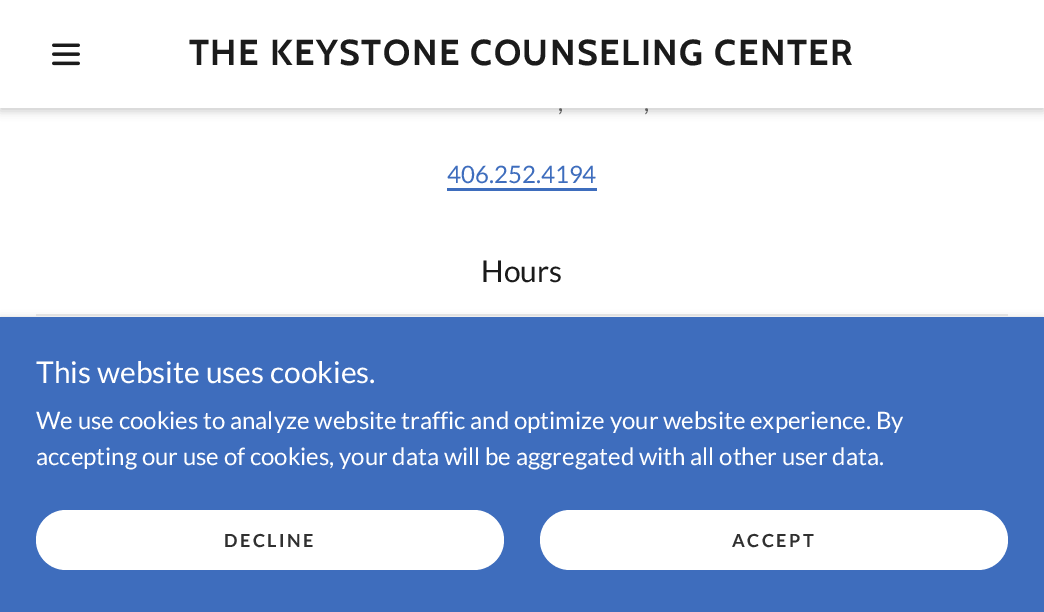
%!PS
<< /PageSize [1044 612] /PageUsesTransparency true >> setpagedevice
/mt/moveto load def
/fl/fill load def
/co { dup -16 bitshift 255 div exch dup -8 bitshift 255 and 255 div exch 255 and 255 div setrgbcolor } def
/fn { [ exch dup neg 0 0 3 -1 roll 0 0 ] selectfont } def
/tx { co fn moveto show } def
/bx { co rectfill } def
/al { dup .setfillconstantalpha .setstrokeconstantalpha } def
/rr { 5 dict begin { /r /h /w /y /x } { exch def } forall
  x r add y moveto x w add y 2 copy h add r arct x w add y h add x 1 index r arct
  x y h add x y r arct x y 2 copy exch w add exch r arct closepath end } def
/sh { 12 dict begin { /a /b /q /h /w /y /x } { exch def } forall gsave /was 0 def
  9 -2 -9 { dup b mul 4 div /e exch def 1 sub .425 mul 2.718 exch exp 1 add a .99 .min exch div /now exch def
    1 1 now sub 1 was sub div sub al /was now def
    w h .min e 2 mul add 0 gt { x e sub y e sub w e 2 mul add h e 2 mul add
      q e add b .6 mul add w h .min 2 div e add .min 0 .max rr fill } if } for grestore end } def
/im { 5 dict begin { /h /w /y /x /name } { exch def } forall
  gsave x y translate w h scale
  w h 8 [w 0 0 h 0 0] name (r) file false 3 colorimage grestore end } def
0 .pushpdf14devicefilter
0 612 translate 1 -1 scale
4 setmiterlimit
0 0 1044 612 16#FFFFFF bx
16#000000 co
0 3 1044 108 0 4.5 .2 sh
0 0 1044 108 16#FFFFFF bx
(media/1.raw) 52 43 28 23 im
447 188 150 3 16#3E6DBD bx
36 314 972 2 16#EBEBEB bx
16#000000 co
0 320 1044 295 0 4.5 .3 sh
0 317 1044 295 16#3E6DBD bx
16#FFFFFF co
36 510 468 60 30 rr fl
540 510 468 60 30 rr fl
/Cabin-Bold 36 fn
16#1B1B1B co
189 65 mt 1.5 0 (THE KEYSTONE COUNSELING CENTER) ashow
(,) 558 111 /Lato-Regular 24 16#5E5E5E tx
(,) 644 111 /Lato-Regular 24 16#5E5E5E tx
(406.252.4194) 447 183 /Lato-Regular 24 16#3E6DBD tx
(Hours) 481 282 /Lato-Regular 30 16#1B1B1B tx
(This website uses cookies.) 36 383 /Lato-Regular 30 16#FFFFFF tx
(We use cookies to analyze website traffic and optimize your website experience. By) 36 429 /Lato-Regular 24 16#FFFFFF tx
(accepting our use of cookies, your data will be aggregated with all other user data.) 36 465 /Lato-Regular 24 16#FFFFFF tx
/Lato-Bold 18 fn
16#303030 co
224 547 mt 2.5 0 (DECLINE) ashow
732 547 mt 2.5 0 (ACCEPT) ashow
.poppdf14devicefilter showpage
